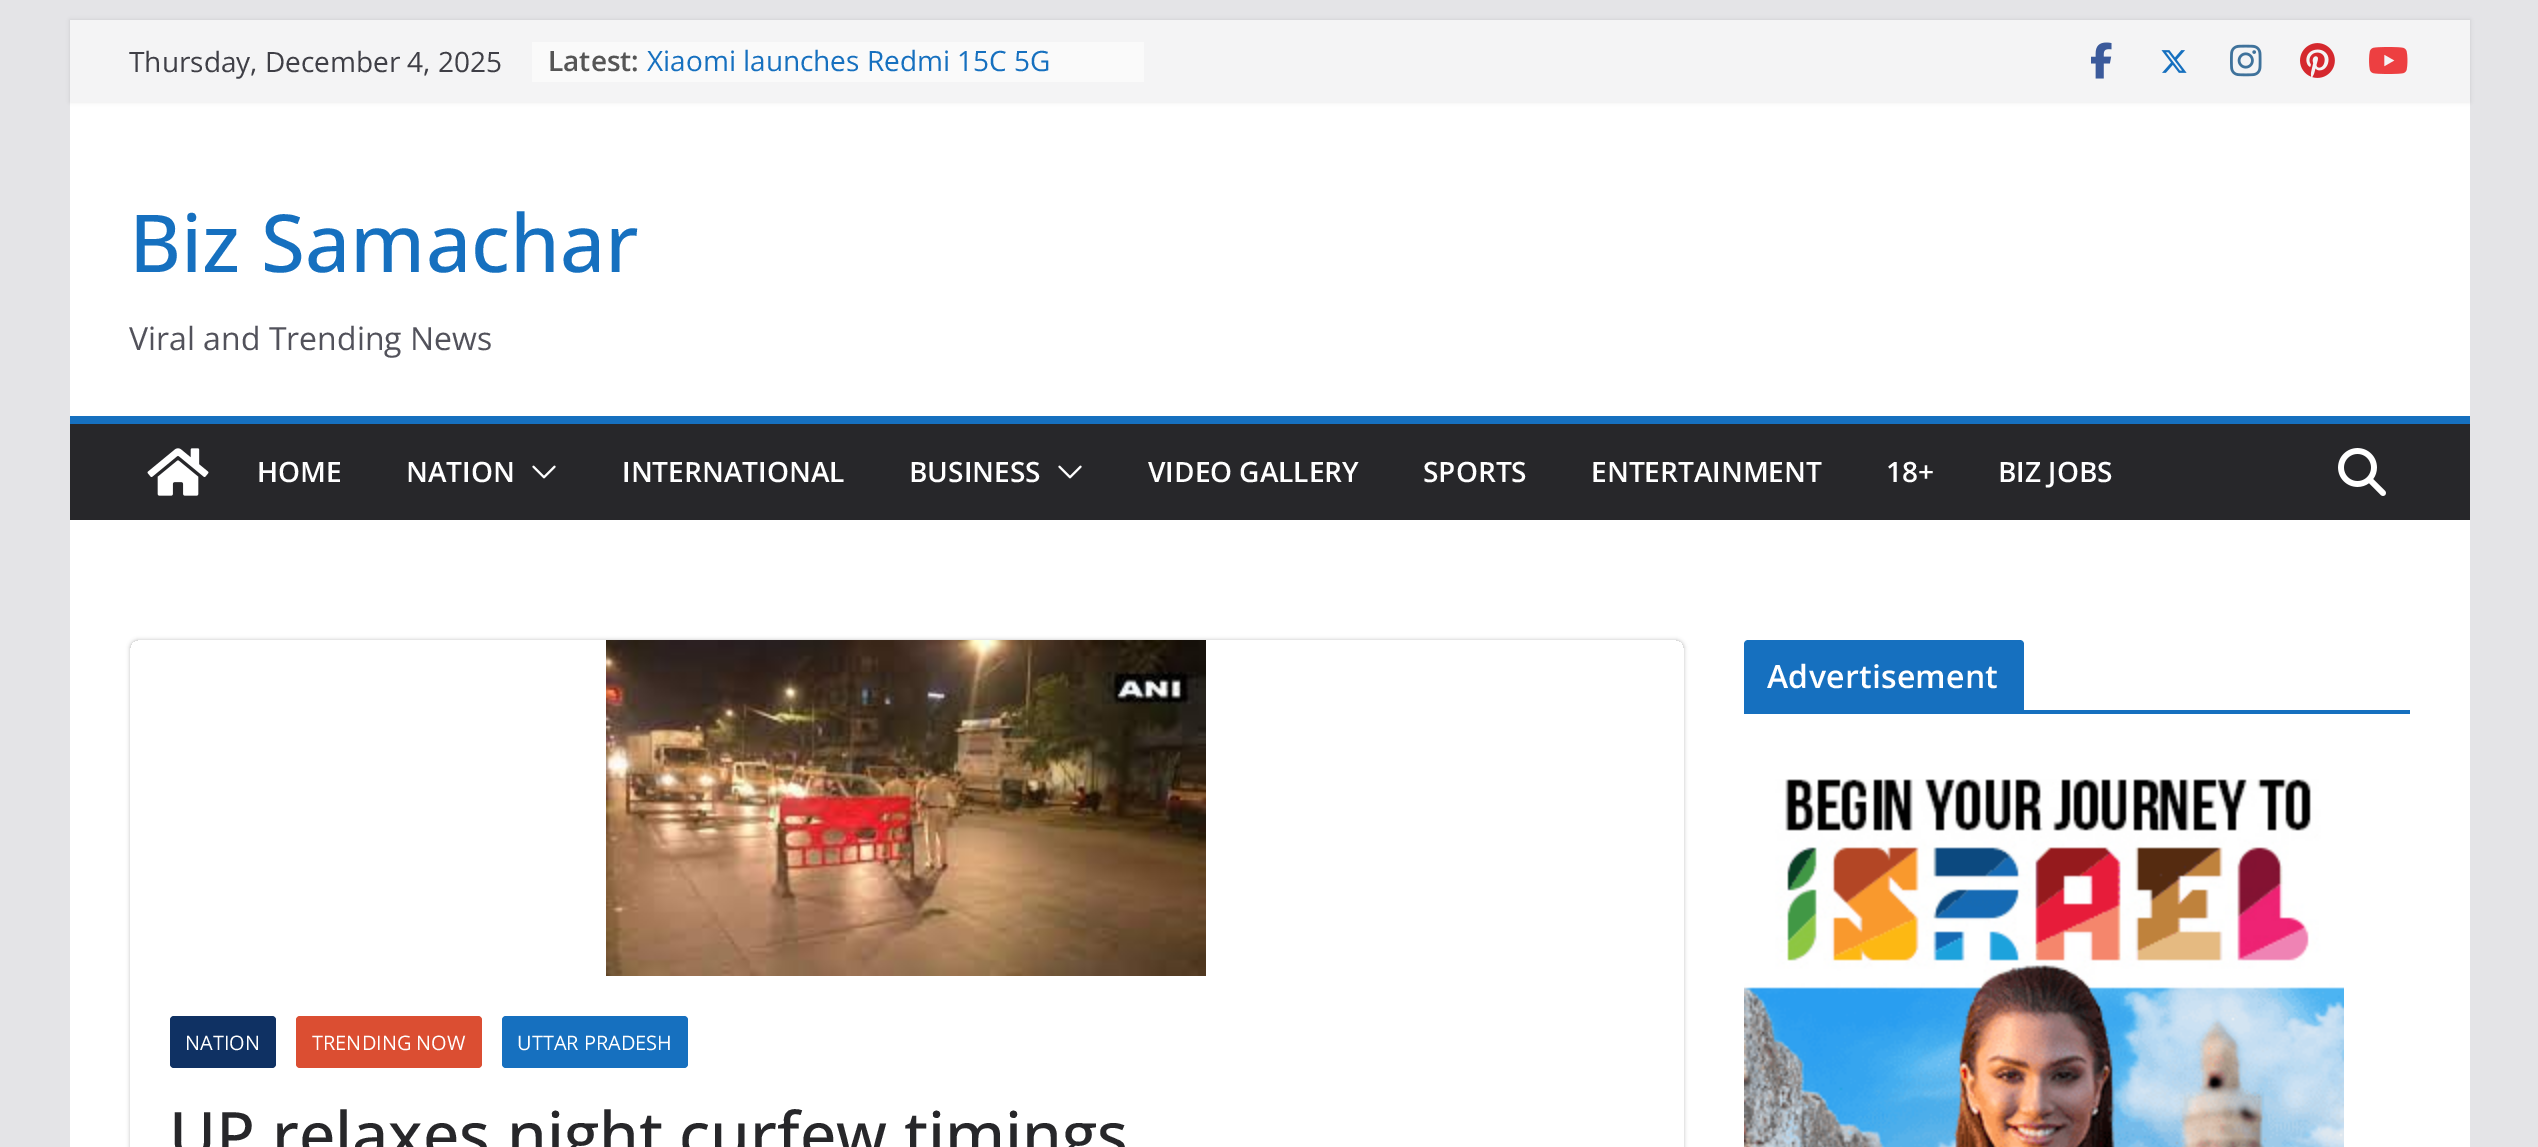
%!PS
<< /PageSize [2538 1147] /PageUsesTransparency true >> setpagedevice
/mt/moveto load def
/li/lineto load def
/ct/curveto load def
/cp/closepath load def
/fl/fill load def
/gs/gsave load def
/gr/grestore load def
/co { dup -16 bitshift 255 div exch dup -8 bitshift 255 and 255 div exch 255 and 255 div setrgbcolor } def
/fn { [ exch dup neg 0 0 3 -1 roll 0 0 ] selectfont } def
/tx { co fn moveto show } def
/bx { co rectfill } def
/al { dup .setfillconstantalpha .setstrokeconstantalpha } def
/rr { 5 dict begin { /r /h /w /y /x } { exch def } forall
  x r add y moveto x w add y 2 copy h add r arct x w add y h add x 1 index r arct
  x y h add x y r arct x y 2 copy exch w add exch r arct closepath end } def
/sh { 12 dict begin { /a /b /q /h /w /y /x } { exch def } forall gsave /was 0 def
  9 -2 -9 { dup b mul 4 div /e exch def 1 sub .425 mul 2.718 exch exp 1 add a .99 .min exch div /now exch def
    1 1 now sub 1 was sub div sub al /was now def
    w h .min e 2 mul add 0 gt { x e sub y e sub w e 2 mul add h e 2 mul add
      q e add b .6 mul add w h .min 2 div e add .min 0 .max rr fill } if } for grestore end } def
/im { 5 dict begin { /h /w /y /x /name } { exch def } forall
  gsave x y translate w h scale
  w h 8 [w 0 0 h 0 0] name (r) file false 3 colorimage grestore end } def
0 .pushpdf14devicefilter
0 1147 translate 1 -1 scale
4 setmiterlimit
0 0 2538 1147 16#E4E4E7 bx
70 102 2400 314 16#FFFFFF bx
16#000000 co
70 20 2400 82 0 2 .1 sh
70 20 2400 82 16#F4F4F5 bx
532 42 612 40 16#FAFAFA bx
(media/1.raw) 2091 42 21 37 im
(media/2.raw) 2161 50 26 23 im
(media/3.raw) 2230 44 32 33 im
(media/4.raw) 2300 43 35 35 im
(media/5.raw) 2369 47 39 27 im
70 424 2400 96 16#27272A bx
70 416 2400 8 16#1670BF bx
(media/6.raw) 147 448 62 48 im
(media/7.raw) 532 465 24 14 im
(media/7.raw) 1058 465 24 14 im
(media/8.raw) 2338 448 48 48 im
70 520 2400 627 16#FFFFFF bx
1744 710 666 4 16#1670BF bx
1748 640 mt 2020 640 li 2022 640 2024 642 2024 644 ct 2024 710 li 1744 710 li 1744 644 li 1744 642 1746 640 1748 640 ct cp fl
(media/9.raw) 1744 779 600 368 im
gs
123 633 mt 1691 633 li 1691 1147 li 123 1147 li cp 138 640 mt 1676 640 li 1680.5 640 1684 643.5 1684 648 ct 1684 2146 li 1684 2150.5 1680.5 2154 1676 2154 ct 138 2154 li 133.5 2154 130 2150.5 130 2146 ct 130 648 li 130 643.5 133.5 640 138 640 ct cp eoclip newpath
16#000000 co
130 640 1554 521 8 2 .24 sh
gr
(media/10.raw) 606 640 600 336 im
16#0F3163 co
170 1016 106 52 4 rr fl
16#DB4E32 co
296 1016 186 52 4 rr fl
16#1670BF co
502 1016 186 52 4 rr fl
(Thursday, December 4, 2025) 129 72 /OpenSans-Regular 28 16#3F3F46 tx
(Latest:) 548 71 /OpenSans-SemiBold 28 16#555555 tx
(Xiaomi launches Redmi 15C 5G) 647 71 /OpenSans-Regular 28 16#1670BF tx
(Biz Samachar) 129 272 /OpenSans-Medium 80 16#1670BF tx
(Viral and Trending News) 129 350 /OpenSans-Regular 32 16#52525B tx
(HOME) 257 482 /OpenSans-SemiBold 28 16#FFFFFF tx
(NATION) 406 482 /OpenSans-SemiBold 28 16#FFFFFF tx
(INTERNATIONAL) 622 482 /OpenSans-SemiBold 28 16#FFFFFF tx
(BUSINESS) 909 482 /OpenSans-SemiBold 28 16#FFFFFF tx
(VIDEO GALLERY) 1148 482 /OpenSans-SemiBold 28 16#FFFFFF tx
(SPORTS) 1423 482 /OpenSans-SemiBold 28 16#FFFFFF tx
(ENTERTAINMENT) 1591 482 /OpenSans-SemiBold 28 16#FFFFFF tx
(18+) 1886 482 /OpenSans-SemiBold 28 16#FFFFFF tx
(BIZ JOBS) 1998 482 /OpenSans-SemiBold 28 16#FFFFFF tx
/OpenSans-SemiBold 32 fn
1767 688 mt .25 0 (Advertisement) ashow
(NATION) 185 1050 /OpenSans-Regular 20 16#FFFFFF tx
(TRENDING NOW) 312 1050 /OpenSans-Regular 20 16#FFFFFF tx
(UTTAR PRADESH) 517 1050 /OpenSans-Regular 20 16#FFFFFF tx
(UP relaxes night curfew timings) 169 1158 /OpenSans-Medium 64 16#27272A tx
.poppdf14devicefilter showpage
